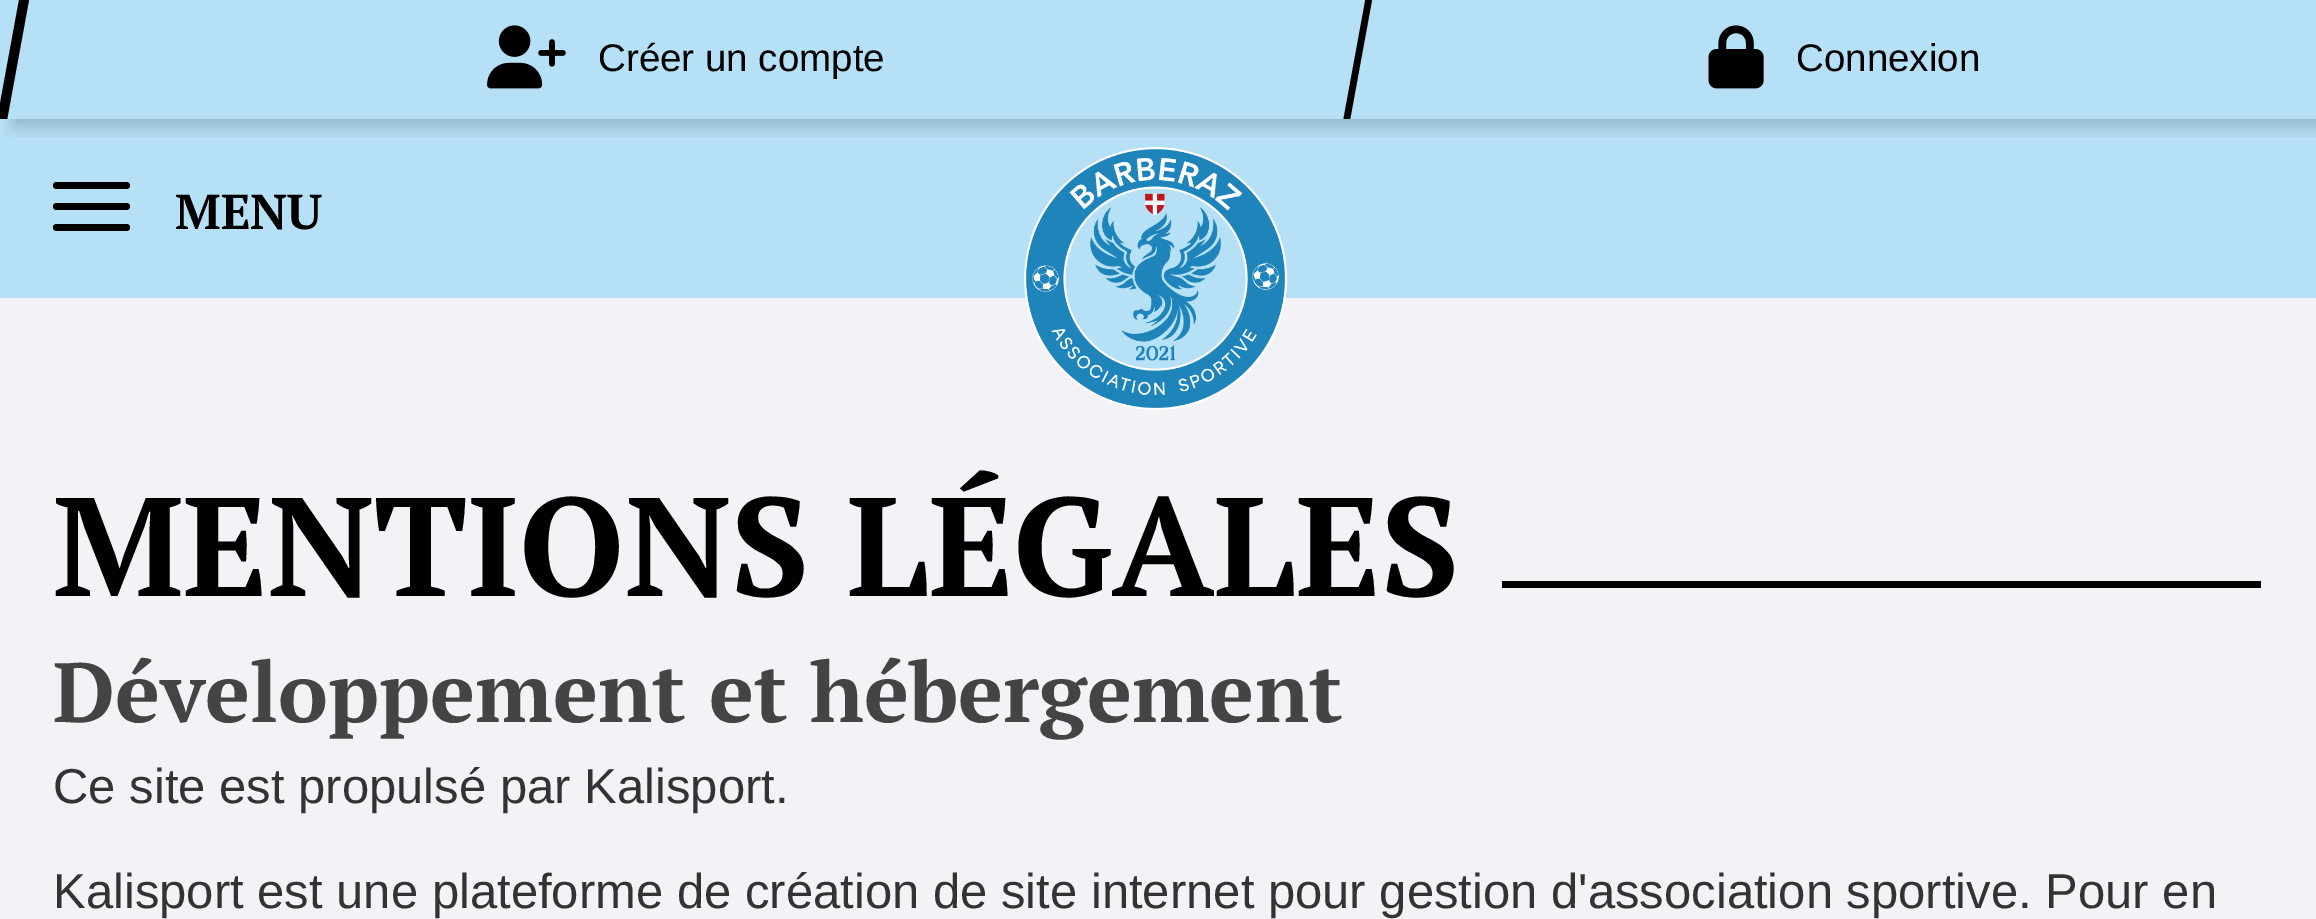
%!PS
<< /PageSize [2316 919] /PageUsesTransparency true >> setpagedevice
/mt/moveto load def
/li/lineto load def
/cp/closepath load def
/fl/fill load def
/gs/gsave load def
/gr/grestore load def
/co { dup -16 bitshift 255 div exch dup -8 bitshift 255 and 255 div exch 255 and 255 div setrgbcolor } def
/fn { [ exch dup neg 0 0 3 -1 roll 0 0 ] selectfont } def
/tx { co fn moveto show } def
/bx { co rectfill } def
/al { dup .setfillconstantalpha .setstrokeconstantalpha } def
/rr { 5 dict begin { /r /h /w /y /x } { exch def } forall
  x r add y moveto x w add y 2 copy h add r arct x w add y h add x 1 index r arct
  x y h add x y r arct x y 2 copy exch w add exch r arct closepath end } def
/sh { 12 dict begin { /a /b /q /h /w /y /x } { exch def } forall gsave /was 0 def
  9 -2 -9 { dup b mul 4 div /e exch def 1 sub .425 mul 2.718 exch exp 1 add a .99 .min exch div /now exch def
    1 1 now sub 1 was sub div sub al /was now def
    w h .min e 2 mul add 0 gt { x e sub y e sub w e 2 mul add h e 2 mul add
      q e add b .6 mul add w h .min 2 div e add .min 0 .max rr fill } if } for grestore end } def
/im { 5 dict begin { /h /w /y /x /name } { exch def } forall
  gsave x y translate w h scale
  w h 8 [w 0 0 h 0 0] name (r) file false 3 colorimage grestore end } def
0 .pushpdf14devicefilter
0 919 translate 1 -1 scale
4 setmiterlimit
0 0 2316 919 16#B5E0F6 bx
gs
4 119 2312 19 rectclip
16#000000 co
14 7 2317 119 0 9 .2 sh
gr
gs
0 0 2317 119 rectclip
16#000000 co
1365 0 mt 1372 0 li 1350 120 li 1343 120 li cp fl
1362 0 mt 1369 0 li 1347 120 li 1340 120 li cp fl
16#B5E0F6 co
22 0 mt 1365 0 li 1343 120 li 0 120 li cp fl
16#000000 co
22 0 mt 29 0 li 7 120 li 0 120 li cp fl
19 0 mt 26 0 li 4 120 li -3 120 li cp fl
gr
(media/1.raw) 487 25 79 64 im
(media/2.raw) 1708 25 56 64 im
16#000000 co
53 182 77 7 3.5 rr fl
53 203 77 7 3.5 rr fl
53 224 77 7 3.5 rr fl
0 298 2316 621 16#F3F2F7 bx
(media/3.raw) 1024 147 264 263 im
1502 581 759 7 16#000000 bx
(Créer un compte) 598 71 /LiberationSans-Regular 38.5 16#000000 tx
(Connexion) 1796 71 /LiberationSans-Regular 38.5 16#000000 tx
(MENU) 175 229 /PTSerif-Bold 49 16#000000 tx
(MENTIONS LÉGALES) 53 596 /PTSerif-Bold 140 16#000000 tx
(Développement et hébergement) 53 722 /PTSerif-Bold 84 16#444444 tx
(Ce site est propulsé par Kalisport.) 53 803 /LiberationSans-Regular 49 16#333333 tx
(Kalisport est une plateforme de création de site internet pour gestion d'association sportive. Pour en) 53 908 /LiberationSans-Regular 49 16#333333 tx
.poppdf14devicefilter showpage
